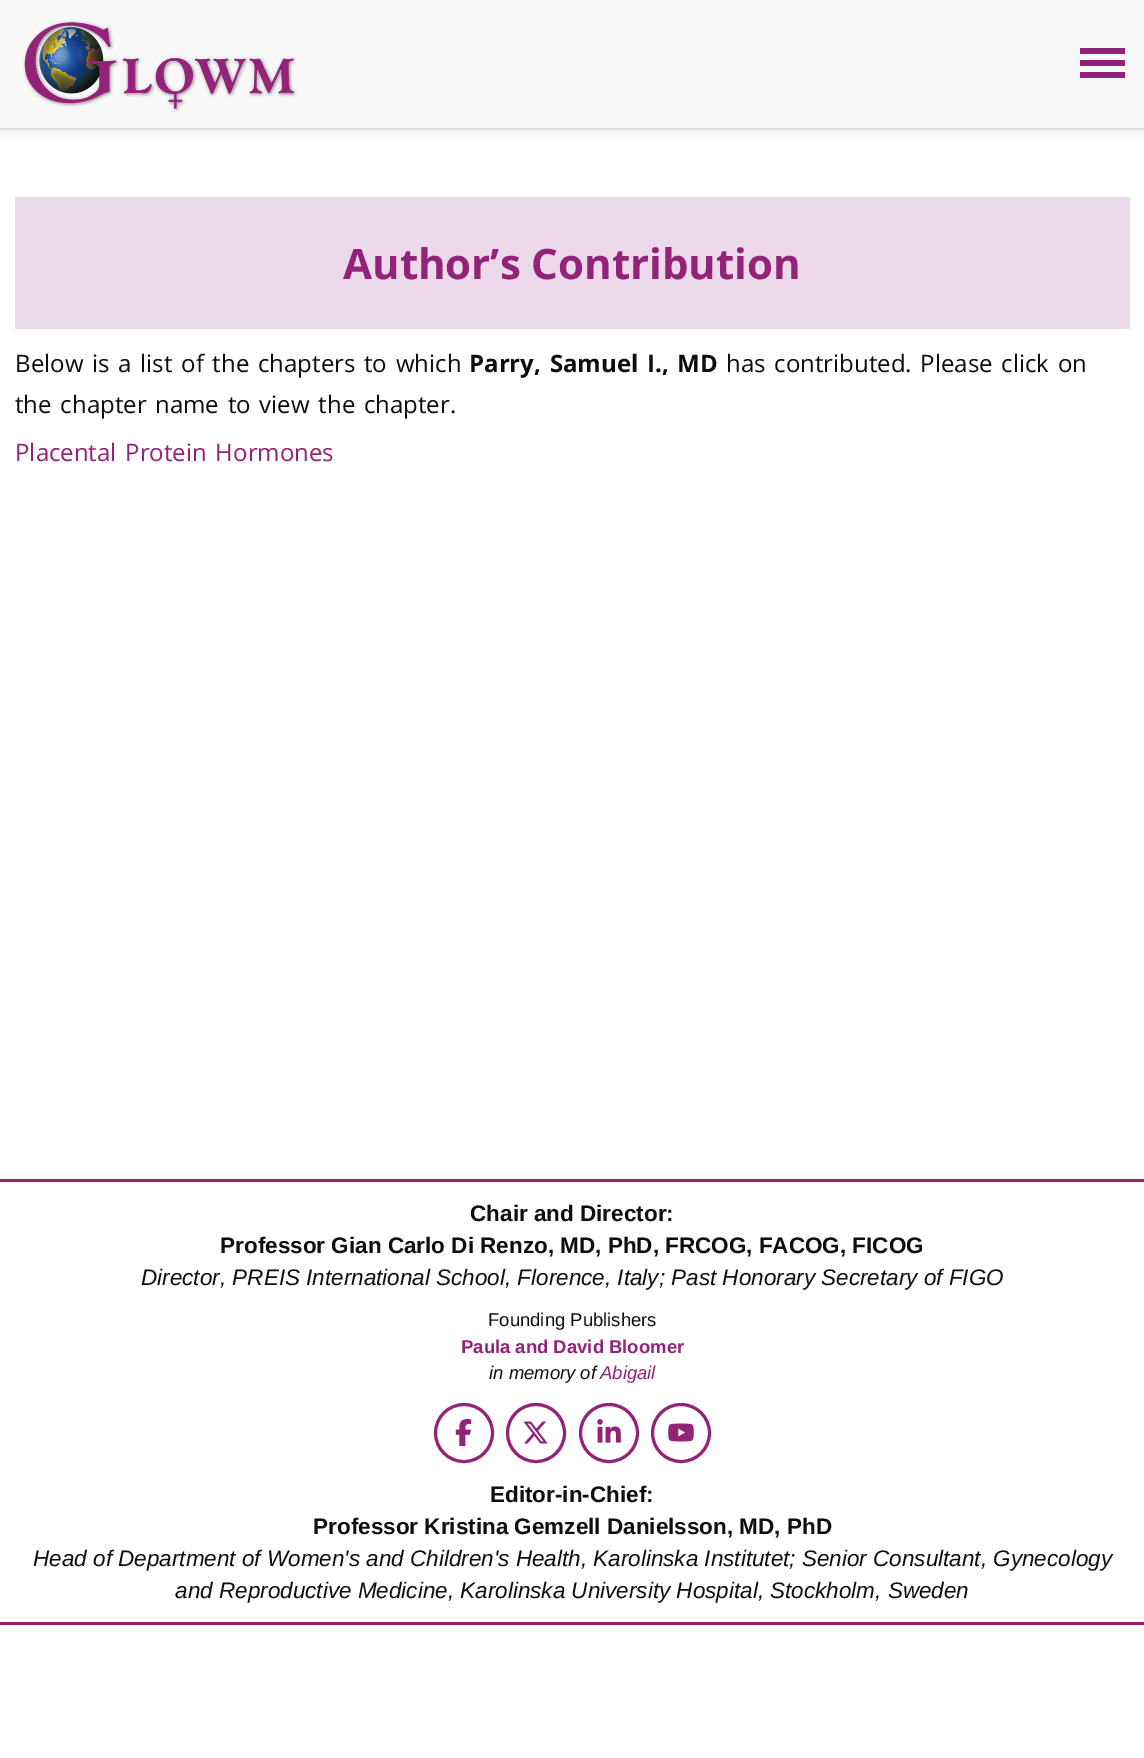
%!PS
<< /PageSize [1144 1758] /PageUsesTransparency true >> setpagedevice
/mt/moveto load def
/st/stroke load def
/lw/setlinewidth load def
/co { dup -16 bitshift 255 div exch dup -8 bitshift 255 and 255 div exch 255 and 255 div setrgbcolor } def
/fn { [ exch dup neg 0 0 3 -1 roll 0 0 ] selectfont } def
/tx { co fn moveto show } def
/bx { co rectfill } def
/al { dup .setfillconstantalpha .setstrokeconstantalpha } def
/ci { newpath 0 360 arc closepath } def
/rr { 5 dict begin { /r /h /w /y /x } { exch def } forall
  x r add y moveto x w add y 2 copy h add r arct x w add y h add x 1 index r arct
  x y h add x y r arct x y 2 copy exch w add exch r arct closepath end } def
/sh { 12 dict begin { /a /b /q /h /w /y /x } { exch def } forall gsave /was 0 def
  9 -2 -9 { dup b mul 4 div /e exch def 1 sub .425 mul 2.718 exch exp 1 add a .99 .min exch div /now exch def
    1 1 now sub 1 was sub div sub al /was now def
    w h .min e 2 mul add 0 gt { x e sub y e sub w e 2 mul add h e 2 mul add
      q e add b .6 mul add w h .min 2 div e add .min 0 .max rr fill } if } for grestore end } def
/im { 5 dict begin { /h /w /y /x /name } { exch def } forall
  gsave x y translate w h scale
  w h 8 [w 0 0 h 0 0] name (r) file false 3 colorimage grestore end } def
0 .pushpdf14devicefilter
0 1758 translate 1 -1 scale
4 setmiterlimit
0 0 1144 1758 16#FFFFFF bx
16#000000 co
-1 126 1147 3 0 1 .1 sh
0 3 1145 128 0 4 .1 sh
0 0 1144 128 16#F8F8F8 bx
(media/1.raw) 23 20 274 92 im
1080 60 45 6 16#932279 bx
1080 48 45 6 16#932279 bx
1080 72 45 6 16#932279 bx
15 197 1115 132 16#ECD9EA bx
0 1179 1144 3 16#932279 bx
0 1622 1144 3 16#932279 bx
3 lw
464 1433 28.5 ci st
(media/2.raw) 455 1419 17 27 im
536 1433 28.5 ci st
(media/3.raw) 523 1421 25 23 im
609 1433 28.5 ci st
(media/4.raw) 597 1419 24 24 im
681 1433 28.5 ci st
(media/5.raw) 668 1423 26 19 im
(Author’s Contribution) 343 279 /OpenSans-Bold 42 16#932279 tx
/OpenSans-Regular 24 fn
16#0C0F12 co
15 372 mt 2.5 0 32 (Below is a list of the chapters to which) widthshow
/OpenSans-Bold 24 fn
469 372 mt 2.5 0 32 (Parry, Samuel I., MD) widthshow
/OpenSans-Regular 24 fn
726 372 mt 2.5 0 32 (has contributed. Please click on) widthshow
15 413 mt 2.5 0 32 (the chapter name to view the chapter.) widthshow
16#932279 co
15 461 mt 2.5 0 32 (Placental Protein Hormones) widthshow
(Chair and Director:) 470 1221 /LiberationSans-Bold 22.5 16#0C0F12 tx
(Professor Gian Carlo Di Renzo, MD, PhD, FRCOG, FACOG, FICOG) 220 1253 /LiberationSans-Bold 22.5 16#0C0F12 tx
(Director, PREIS International School, Florence, Italy; Past Honorary Secretary of FIGO) 141 1285 /LiberationSans-Italic 22.5 16#0C0F12 tx
(Founding Publishers) 488 1326 /LiberationSans-Regular 18.5 16#0C0F12 tx
(Paula and David Bloomer) 461 1353 /LiberationSans-Bold 18.5 16#932279 tx
(in memory of) 489 1379 /LiberationSans-Italic 18.5 16#0C0F12 tx
(Abigail) 600 1379 /LiberationSans-Italic 18.5 16#932279 tx
(Editor-in-Chief:) 490 1502 /LiberationSans-Bold 22.5 16#0C0F12 tx
(Professor Kristina Gemzell Danielsson, MD, PhD) 313 1534 /LiberationSans-Bold 22.5 16#0C0F12 tx
(Head of Department of Women's and Children's Health, Karolinska Institutet; Senior Consultant, Gynecology) 33 1566 /LiberationSans-Italic 22.5 16#0C0F12 tx
(and Reproductive Medicine, Karolinska University Hospital, Stockholm, Sweden) 175 1598 /LiberationSans-Italic 22.5 16#0C0F12 tx
.poppdf14devicefilter showpage
